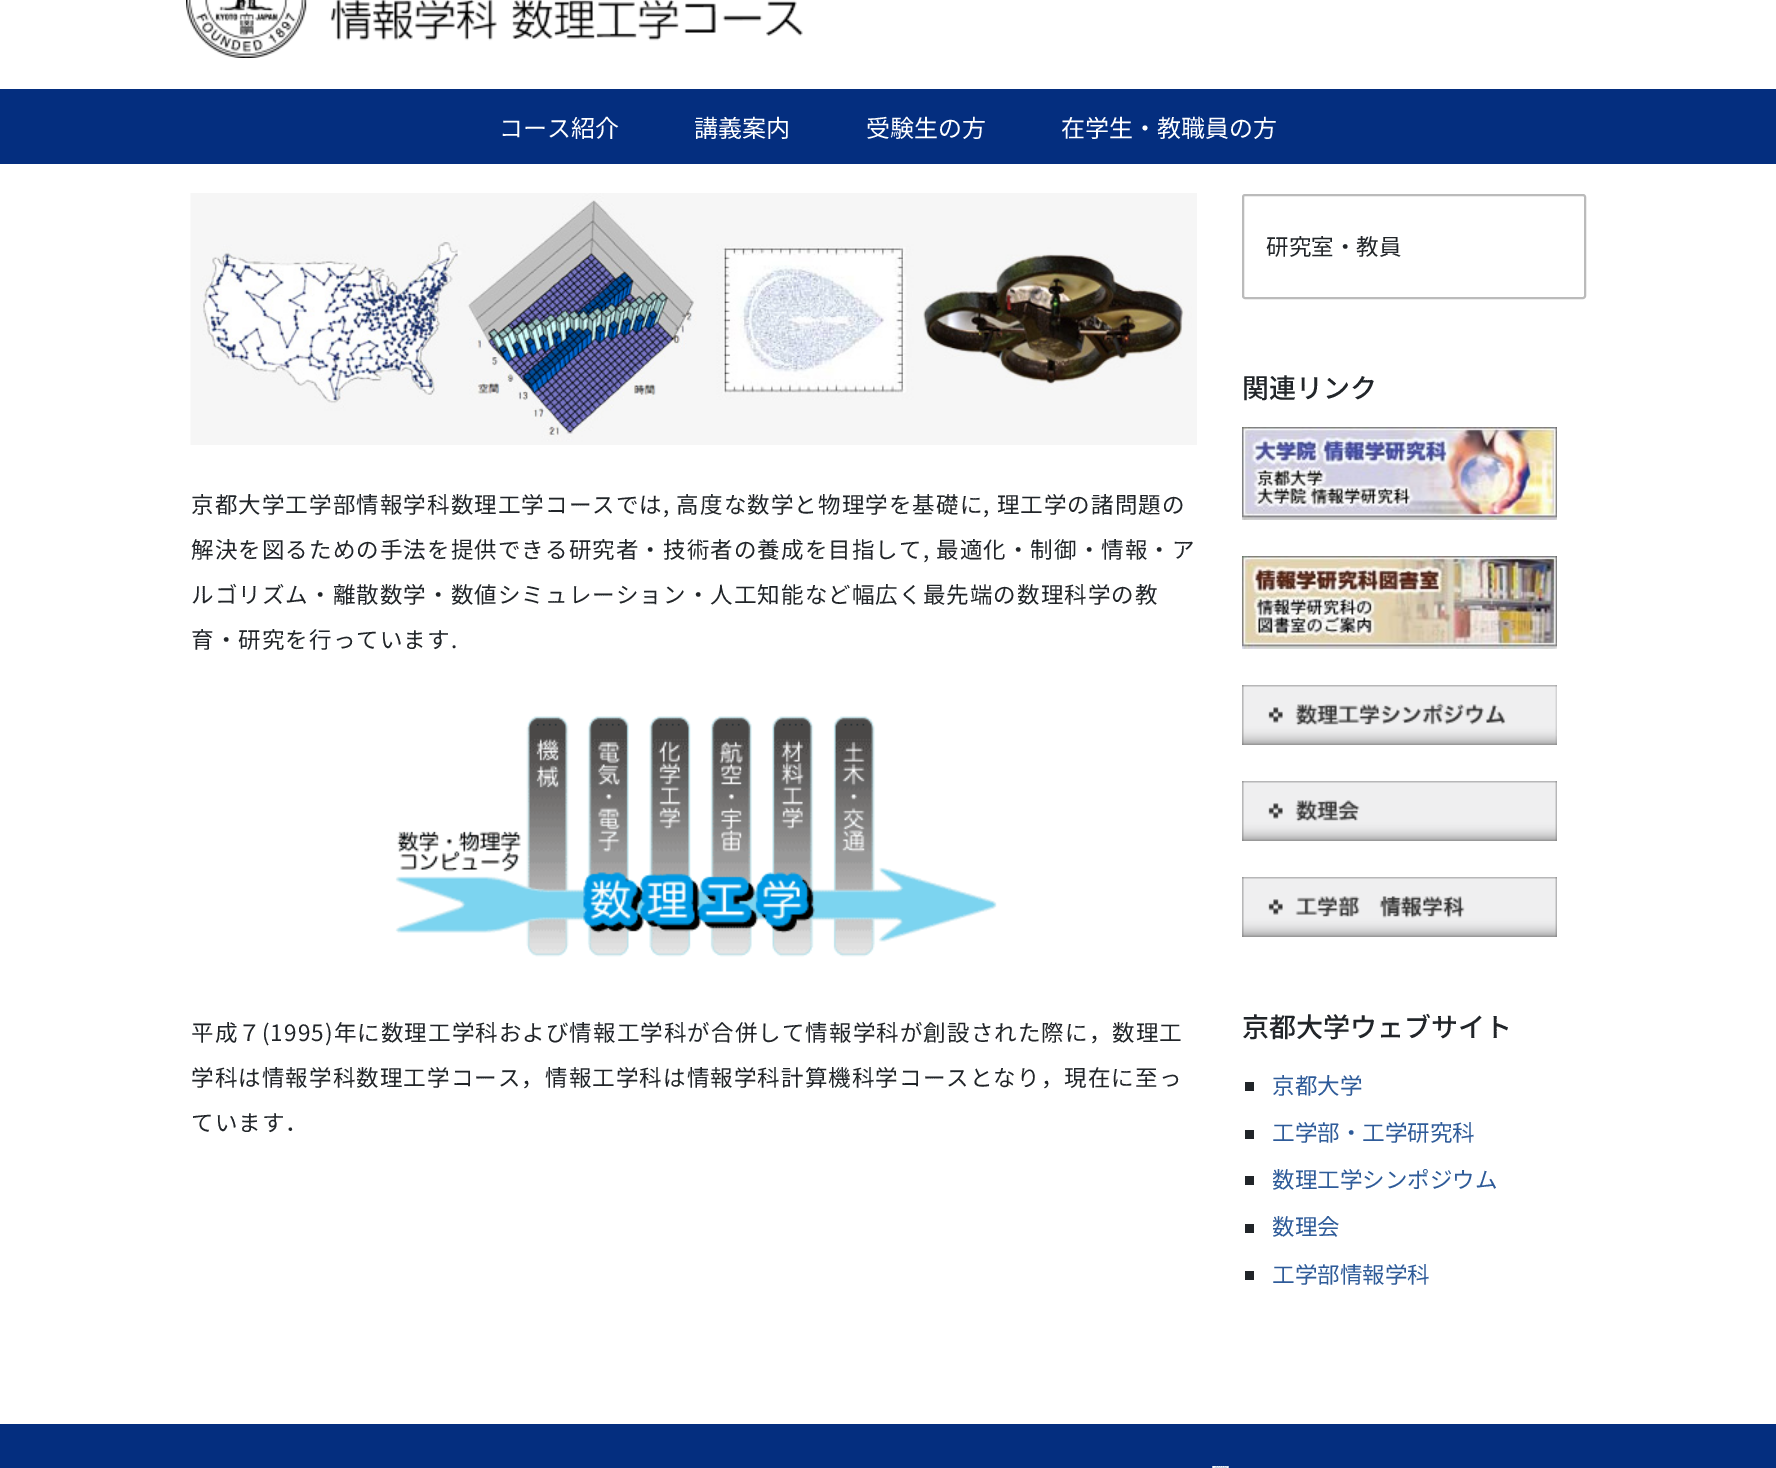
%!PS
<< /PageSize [1776 1468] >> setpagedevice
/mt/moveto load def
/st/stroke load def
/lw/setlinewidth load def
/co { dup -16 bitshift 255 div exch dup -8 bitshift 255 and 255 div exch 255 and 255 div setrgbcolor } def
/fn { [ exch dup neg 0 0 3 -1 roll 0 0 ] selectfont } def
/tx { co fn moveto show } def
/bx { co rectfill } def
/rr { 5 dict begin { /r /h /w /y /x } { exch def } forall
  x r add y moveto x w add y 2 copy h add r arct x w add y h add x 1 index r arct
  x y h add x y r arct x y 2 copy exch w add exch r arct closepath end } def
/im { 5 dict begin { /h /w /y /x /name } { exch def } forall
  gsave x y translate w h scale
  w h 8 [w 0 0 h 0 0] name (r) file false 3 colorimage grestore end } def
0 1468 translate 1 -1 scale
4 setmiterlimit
0 0 1776 1468 16#FFFFFF bx
(media/1.raw) 186 0 617 58 im
0 89 1776 75 16#042E7F bx
(media/2.raw) 190 193 1007 252 im
16#BBBBBB co
2 lw
1243 195 342 103 2 rr st
(media/3.raw) 1242 427 315 93 im
(media/4.raw) 1242 556 315 93 im
(media/5.raw) 1242 685 315 60 im
(media/6.raw) 1242 781 315 60 im
(media/7.raw) 1242 877 315 60 im
1245 1082 9 9 16#212529 bx
1245 1130 9 9 16#212529 bx
1245 1176 9 9 16#212529 bx
1245 1224 9 9 16#212529 bx
1245 1271 9 9 16#212529 bx
(media/8.raw) 395 716 602 241 im
0 1424 1776 44 16#042E7F bx
(コース紹介) 499 137 /NotoSansJP-Regular 24 16#FFFFFF tx
(講義案内) 694 137 /NotoSansJP-Regular 24 16#FFFFFF tx
(受験生の方) 866 137 /NotoSansJP-Regular 24 16#FFFFFF tx
(在学生・教職員の方) 1061 137 /NotoSansJP-Regular 24 16#FFFFFF tx
(研究室・教員) 1266 255 /NotoSansJP-Regular 22.5 16#212529 tx
(関連リンク) 1242 398 /NotoSansJP-Medium 27 16#212529 tx
(京都大学ウェブサイト) 1242 1037 /NotoSansJP-Medium 27 16#212529 tx
(京都大学) 1272 1094 /NotoSansJP-Regular 22.5 16#2E5B99 tx
(工学部・工学研究科) 1272 1141 /NotoSansJP-Regular 22.5 16#2E5B99 tx
(数理工学シンポジウム) 1272 1188 /NotoSansJP-Regular 22.5 16#2E5B99 tx
(数理会) 1272 1235 /NotoSansJP-Regular 22.5 16#2E5B99 tx
(工学部情報学科) 1272 1283 /NotoSansJP-Regular 22.5 16#2E5B99 tx
16#212529 co
191 513 mt 1.1 0 (京都大学工学部情報学科数理工学コースでは, 高度な数学と物理学を基礎に, 理工学の諸問題の) ashow
191 558 mt 1.1 0 (解決を図るための手法を提供できる研究者・技術者の養成を目指して, 最適化・制御・情報・ア) ashow
191 603 mt 1.1 0 (ルゴリズム・離散数学・数値シミュレーション・人工知能など幅広く最先端の数理科学の教) ashow
191 648 mt 1.1 0 (育・研究を行っています.) ashow
191 1041 mt 1.1 0 (平成７\(1995\)年に数理工学科および情報工学科が合併して情報学科が創設された際に，数理工) ashow
191 1086 mt 1.1 0 (学科は情報学科数理工学コース，情報工学科は情報学科計算機科学コースとなり，現在に至っ) ashow
191 1131 mt 1.1 0 (ています．) ashow
(ー) 1210 1475 /NotoSansJP-Regular 21 16#F6F6F6 tx
showpage
